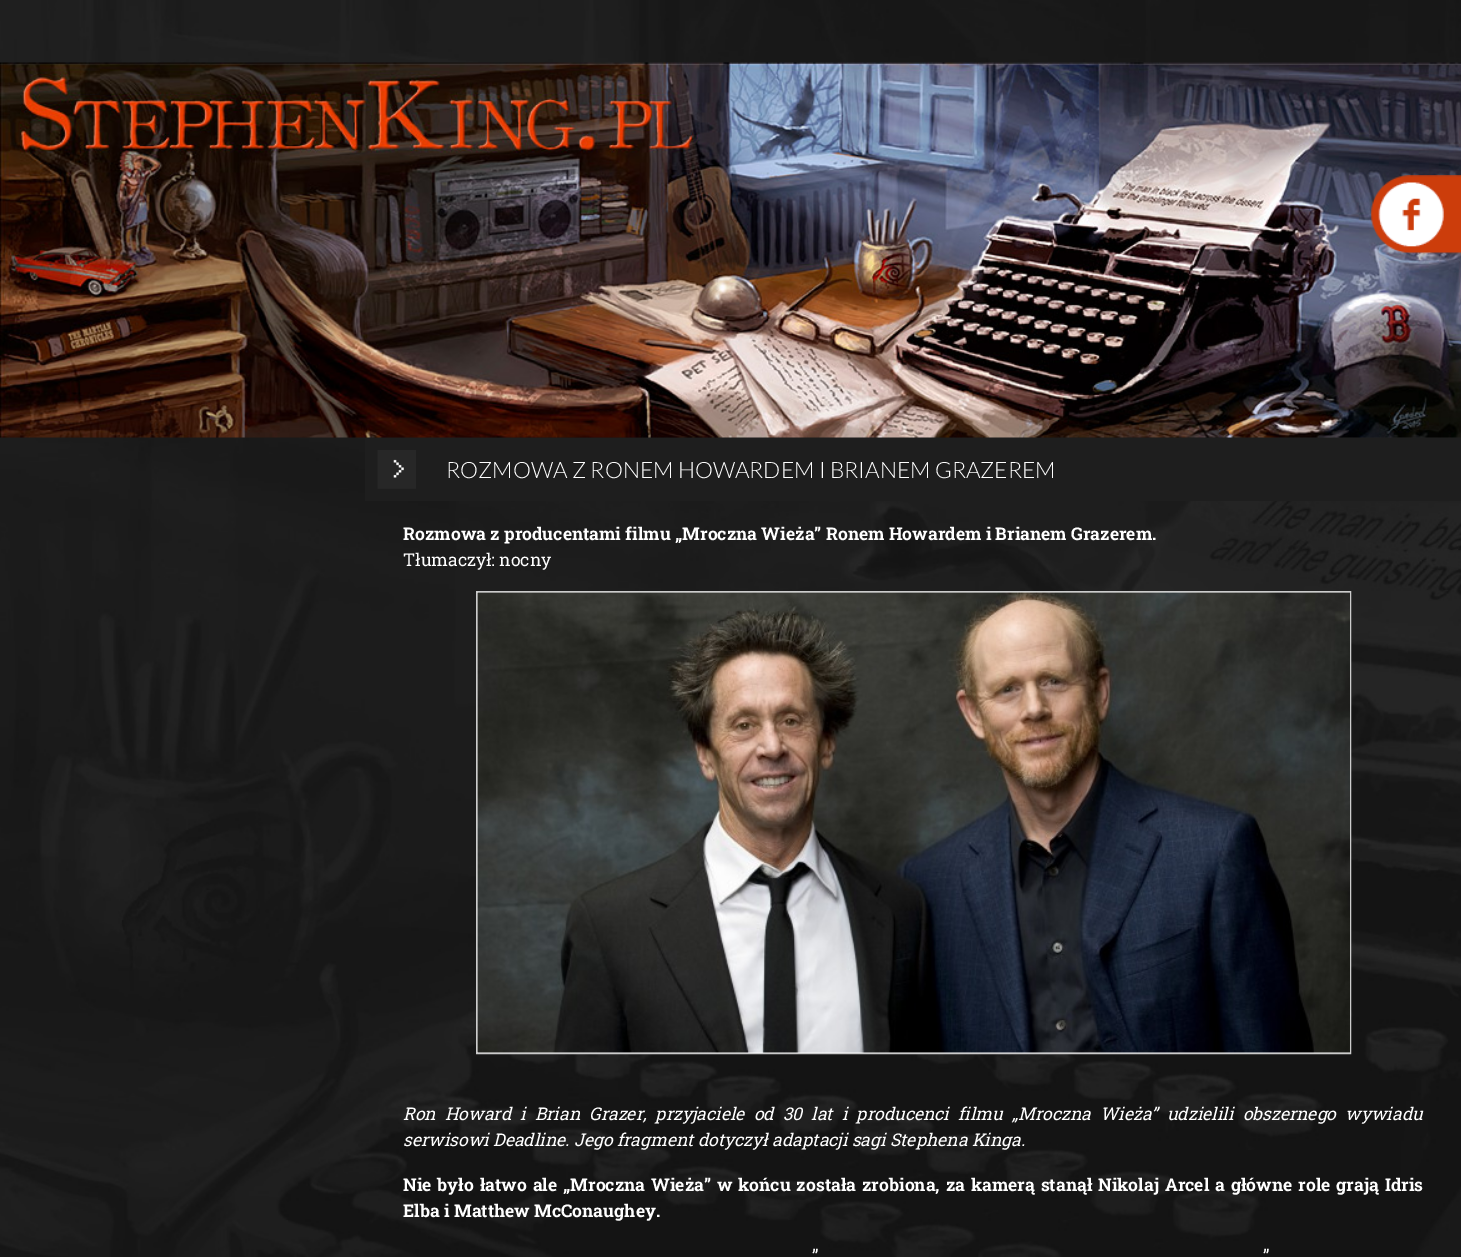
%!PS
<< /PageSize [1461 1257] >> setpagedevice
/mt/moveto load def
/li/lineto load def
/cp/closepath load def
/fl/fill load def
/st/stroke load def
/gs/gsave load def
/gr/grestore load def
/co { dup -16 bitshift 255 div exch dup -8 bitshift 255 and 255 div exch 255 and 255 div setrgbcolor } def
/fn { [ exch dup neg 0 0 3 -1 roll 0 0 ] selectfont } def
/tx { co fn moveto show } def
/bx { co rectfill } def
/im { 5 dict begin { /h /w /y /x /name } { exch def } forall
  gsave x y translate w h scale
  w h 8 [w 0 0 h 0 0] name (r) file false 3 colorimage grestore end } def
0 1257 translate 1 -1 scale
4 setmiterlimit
0 0 1461 1257 16#FFFFFF bx
(media/1.raw) 0 0 1461 1257 im
(media/2.raw) 0 62 1461 376 im
(media/3.raw) 1371 175 90 79 im
365 438 1096 63 16#1E1E1E bx
(media/4.raw) 377 450 39 39 im
16#FFFFFF co
476.5 591.5 mt 1350.5 591.5 li 1350.5 1053.5 li 476.5 1053.5 li cp gs fl gr
16#CCCCCC co
st
(media/5.raw) 477 592 873 461 im
(ROZMOWA Z RONEM HOWARDEM I BRIANEM GRAZEREM) 446 478 /Lato-Light 22.5 16#FFFFFF tx
(Rozmowa z producentami filmu „Mroczna Wieża” Ronem Howardem i Brianem Grazerem.) 403 540 /RobotoSlab-Bold 17.5 16#FFFFFF tx
(Tłumaczył: nocny) 403 566 /RobotoSlab-Regular 17.5 16#FFFFFF tx
/RobotoSlab-Italic 17.5 fn
403 1120 mt 4.75 0 32 (Ron Howard i Brian Grazer, przyjaciele od 30 lat i producenci filmu „Mroczna Wieża” udzielili obszernego wywiadu) widthshow
(serwisowi Deadline. Jego fragment dotyczył adaptacji sagi Stephena Kinga.) 403 1146 /RobotoSlab-Italic 17.5 16#FFFFFF tx
/RobotoSlab-Bold 17.5 fn
403 1191 mt 1.5 0 32 (Nie było łatwo ale „Mroczna Wieża” w końcu została zrobiona, za kamerą stanął Nikolaj Arcel a główne role grają Idris) widthshow
(Elba i Matthew McConaughey.) 403 1217 /RobotoSlab-Bold 17.5 16#FFFFFF tx
/RobotoSlab-Regular 17.5 fn
812 1262 mt 3 0 32 (”) widthshow
1263 1262 mt 3 0 32 (”) widthshow
showpage
